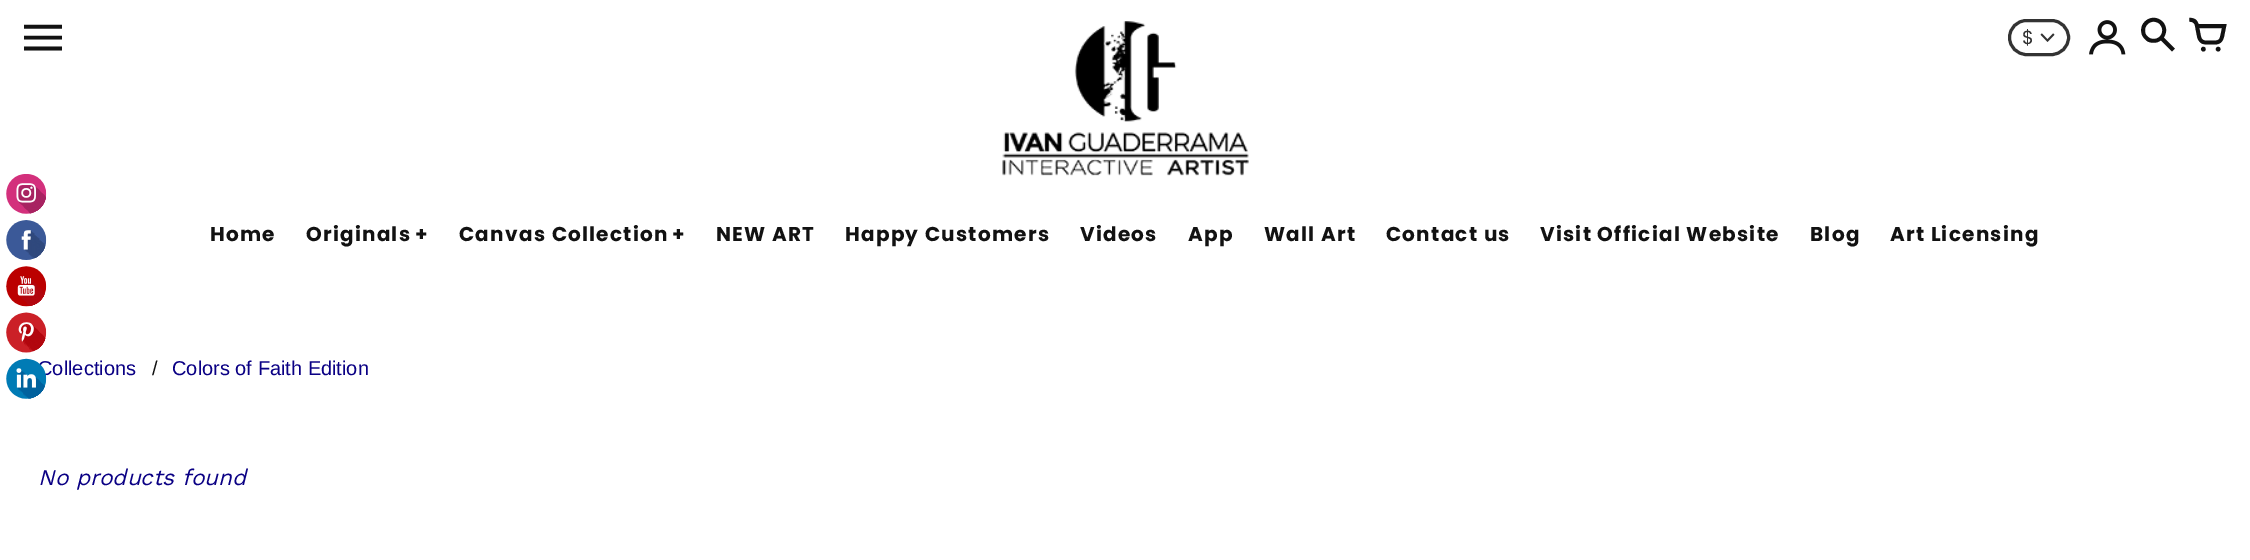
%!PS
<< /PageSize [2250 560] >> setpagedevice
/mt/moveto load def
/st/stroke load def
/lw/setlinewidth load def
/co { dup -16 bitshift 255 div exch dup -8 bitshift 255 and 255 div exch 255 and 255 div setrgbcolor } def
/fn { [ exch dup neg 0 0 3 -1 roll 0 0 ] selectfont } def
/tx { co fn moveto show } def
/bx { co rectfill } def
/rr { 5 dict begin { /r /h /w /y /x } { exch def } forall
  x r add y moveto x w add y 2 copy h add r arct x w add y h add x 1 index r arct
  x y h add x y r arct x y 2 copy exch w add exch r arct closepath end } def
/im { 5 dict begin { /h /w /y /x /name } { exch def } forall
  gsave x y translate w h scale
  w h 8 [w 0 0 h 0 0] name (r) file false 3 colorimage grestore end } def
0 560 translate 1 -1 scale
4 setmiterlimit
0 0 2250 560 16#FFFFFF bx
(media/1.raw) 1002 21 247 155 im
16#333333 co
3 lw
2009.5 20.5 59 34 17 rr st
(media/2.raw) 2040 33 15 9 im
(media/3.raw) 2089 20 37 35 im
(1) 24 59 /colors-Regular 38 16#121212 tx
($) 2022 44 /Poppins-Regular 19 16#333333 tx
(2) 2139 56 /colors-Regular 38 16#121212 tx
(3) 2189 56 /colors-Regular 38 16#121212 tx
/Poppins-Bold 20 fn
210 241 mt 1.25 0 (Home) ashow
306 241 mt 1.25 0 (Originals) ashow
415 241 mt 1.25 0 (+) ashow
459 241 mt 1.25 0 (Canvas Collection) ashow
672 241 mt 1.25 0 (+) ashow
716 241 mt 1.25 0 (NEW ART) ashow
845 241 mt 1.25 0 (Happy Customers) ashow
1080 241 mt 1.25 0 (Videos) ashow
1188 241 mt 1.25 0 (App) ashow
1264 241 mt 1.25 0 (Wall Art) ashow
1386 241 mt 1.25 0 (Contact us) ashow
1540 241 mt 1.25 0 (Visit Official Website) ashow
1810 241 mt 1.25 0 (Blog) ashow
1890 241 mt 1.25 0 (Art Licensing) ashow
(Collections) 38 375 /LiberationSans-Regular 20 16#0A0084 tx
(media/4.raw) 6 174 41 225 im
(/) 152 375 /LiberationSans-Regular 20 16#121212 tx
(Colors of Faith Edition) 172 375 /LiberationSans-Regular 20 16#0A0084 tx
(No products found) 38 485 /WorkSans-Italic 22.5 16#0A0084 tx
showpage
